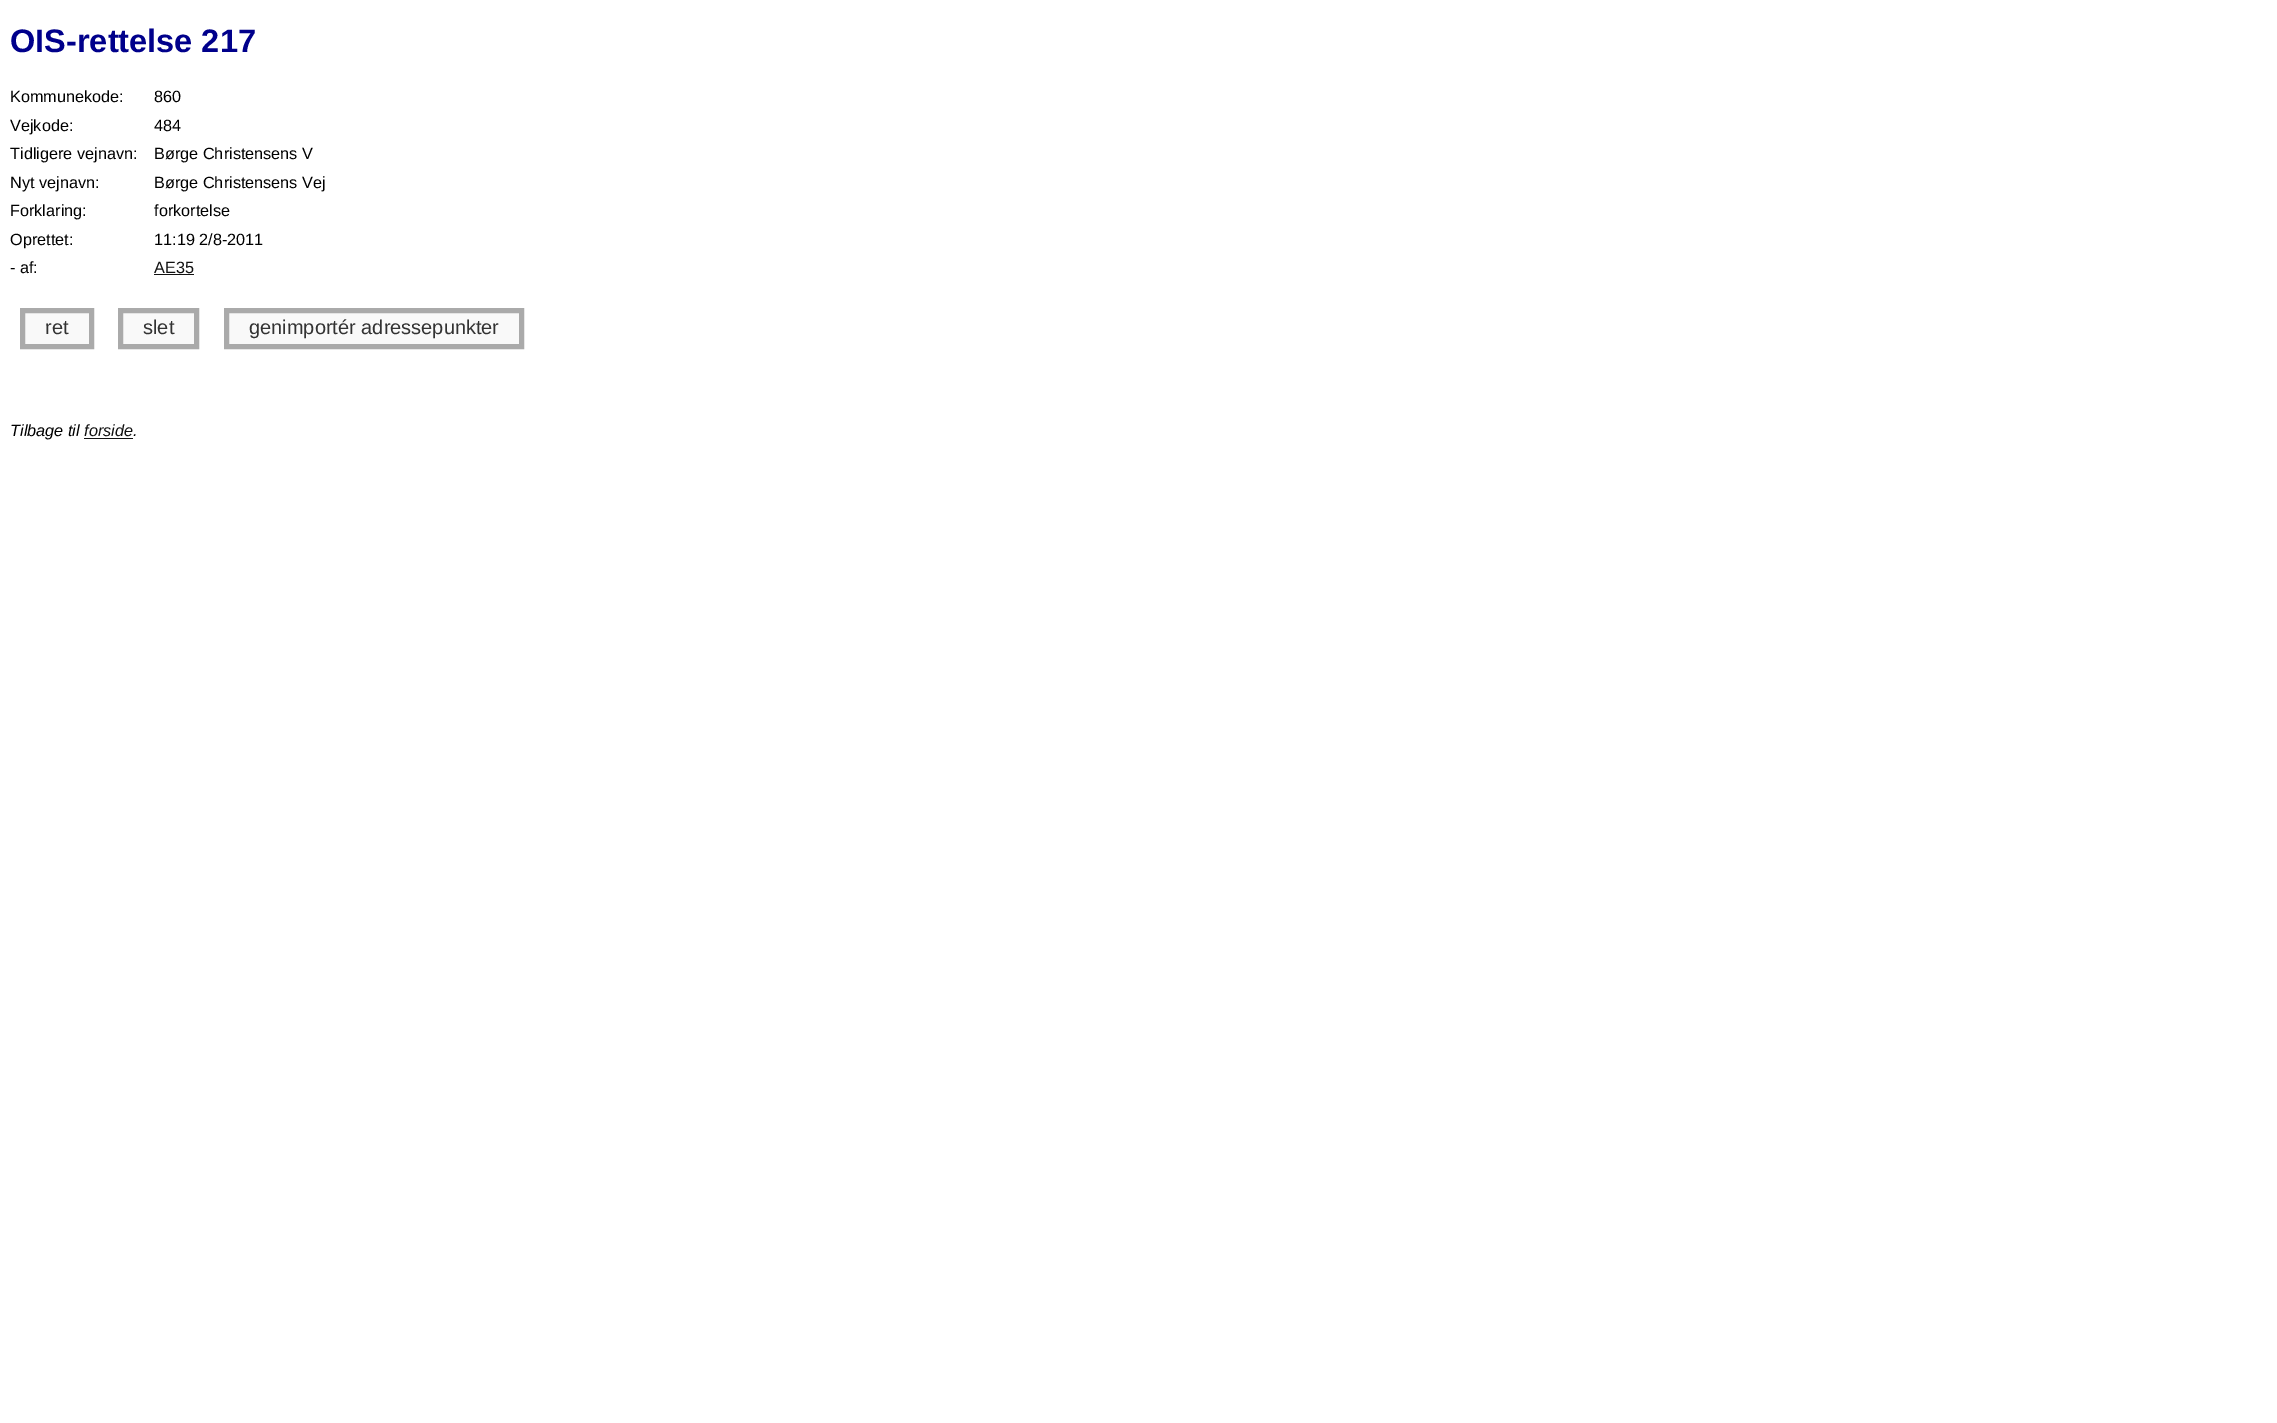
%!PS
<< /PageSize [2277 1423] >> setpagedevice
/mt/moveto load def
/li/lineto load def
/cp/closepath load def
/fl/fill load def
/st/stroke load def
/gs/gsave load def
/gr/grestore load def
/lw/setlinewidth load def
/co { dup -16 bitshift 255 div exch dup -8 bitshift 255 and 255 div exch 255 and 255 div setrgbcolor } def
/fn { [ exch dup neg 0 0 3 -1 roll 0 0 ] selectfont } def
/tx { co fn moveto show } def
/bx { co rectfill } def
0 1423 translate 1 -1 scale
4 setmiterlimit
0 0 2277 1423 16#FFFFFF bx
154 274 40 1 16#111111 bx
16#F9F9F9 co
22.5 310.5 mt 91.5 310.5 li 91.5 346.5 li 22.5 346.5 li cp gs fl gr
16#AAAAAA co
5 lw
st
16#F9F9F9 co
120.5 310.5 mt 196.5 310.5 li 196.5 346.5 li 120.5 346.5 li cp gs fl gr
16#AAAAAA co
st
16#F9F9F9 co
226.5 310.5 mt 521.5 310.5 li 521.5 346.5 li 226.5 346.5 li cp gs fl gr
16#AAAAAA co
st
84 438 49 1 16#111111 bx
(OIS-rettelse 217) 10 52 /LiberationSans-Bold 32.5 16#00008B tx
(Kommunekode:) 10 102 /LiberationSans-Regular 16.25 16#000000 tx
(860) 154 102 /LiberationSans-Regular 16.25 16#000000 tx
(Vejkode:) 10 131 /LiberationSans-Regular 16.25 16#000000 tx
(484) 154 131 /LiberationSans-Regular 16.25 16#000000 tx
(Tidligere vejnavn:) 10 159 /LiberationSans-Regular 16.25 16#000000 tx
(Børge Christensens V) 154 159 /LiberationSans-Regular 16.25 16#000000 tx
(Nyt vejnavn:) 10 188 /LiberationSans-Regular 16.25 16#000000 tx
(Børge Christensens Vej) 154 188 /LiberationSans-Regular 16.25 16#000000 tx
(Forklaring:) 10 216 /LiberationSans-Regular 16.25 16#000000 tx
(forkortelse) 154 216 /LiberationSans-Regular 16.25 16#000000 tx
(Oprettet:) 10 245 /LiberationSans-Regular 16.25 16#000000 tx
(11:19 2/8-2011) 154 245 /LiberationSans-Regular 16.25 16#000000 tx
(- af:) 10 273 /LiberationSans-Regular 16.25 16#000000 tx
(AE35) 154 273 /LiberationSans-Regular 16.25 16#111111 tx
(ret) 45 334 /LiberationSans-Regular 20 16#333333 tx
(slet) 143 334 /LiberationSans-Regular 20 16#333333 tx
(genimportér adressepunkter) 249 334 /LiberationSans-Regular 20 16#333333 tx
(Tilbage til) 10 436 /LiberationSans-Italic 16.25 16#000000 tx
(forside) 84 436 /LiberationSans-Italic 16.25 16#111111 tx
(.) 133 436 /LiberationSans-Italic 16.25 16#000000 tx
showpage
